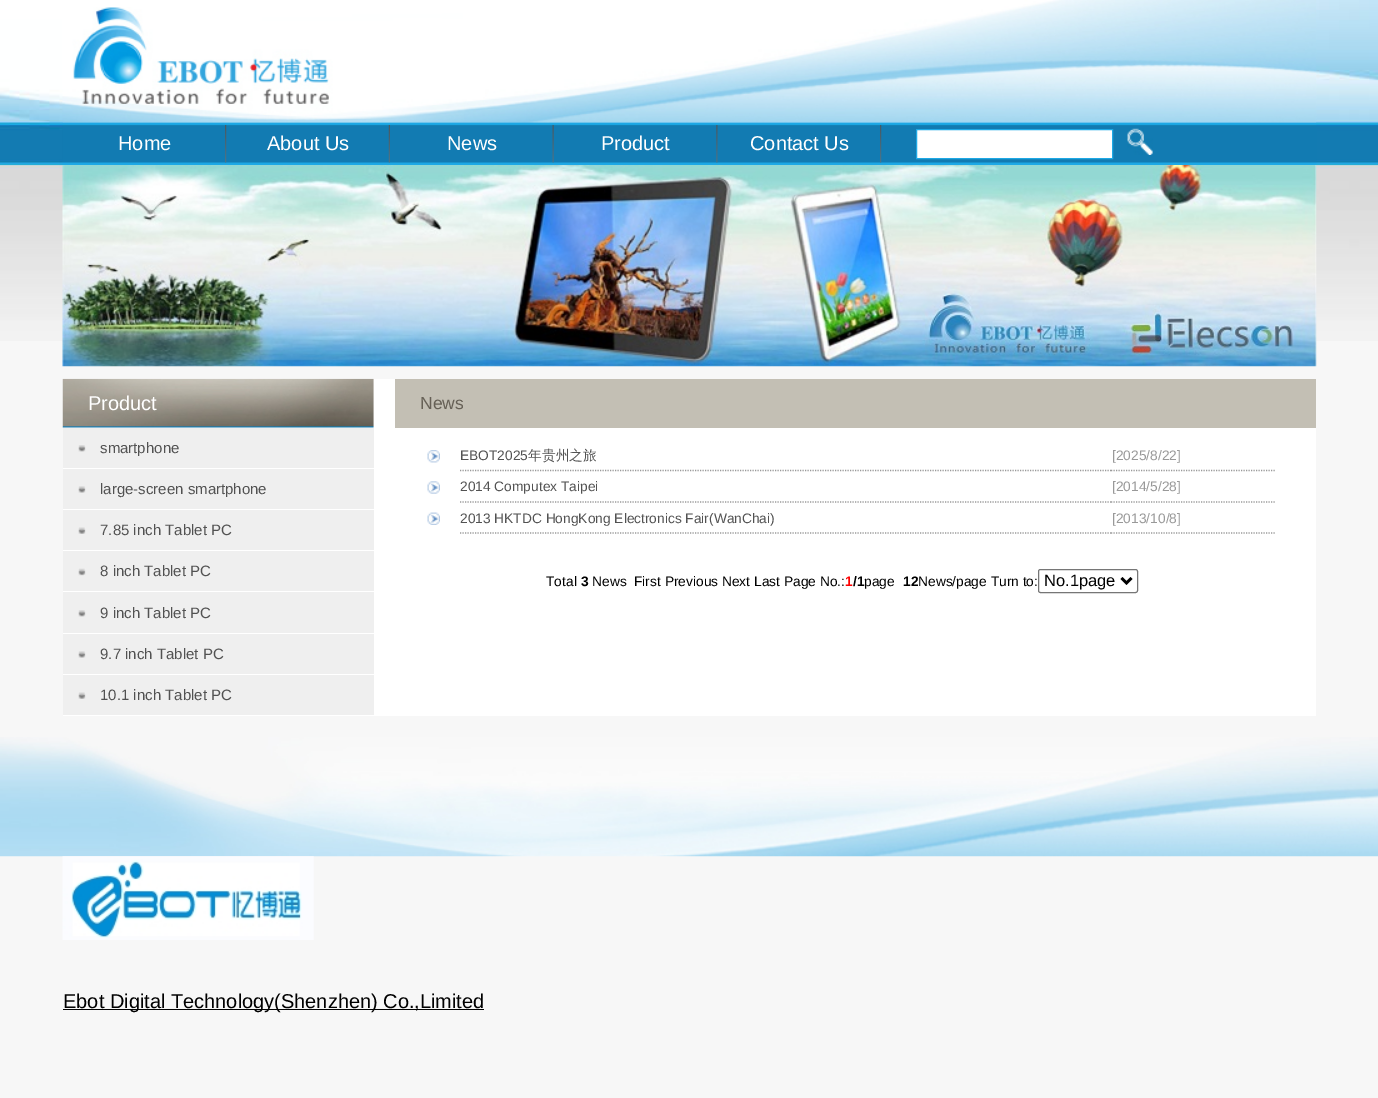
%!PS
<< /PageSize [1378 1098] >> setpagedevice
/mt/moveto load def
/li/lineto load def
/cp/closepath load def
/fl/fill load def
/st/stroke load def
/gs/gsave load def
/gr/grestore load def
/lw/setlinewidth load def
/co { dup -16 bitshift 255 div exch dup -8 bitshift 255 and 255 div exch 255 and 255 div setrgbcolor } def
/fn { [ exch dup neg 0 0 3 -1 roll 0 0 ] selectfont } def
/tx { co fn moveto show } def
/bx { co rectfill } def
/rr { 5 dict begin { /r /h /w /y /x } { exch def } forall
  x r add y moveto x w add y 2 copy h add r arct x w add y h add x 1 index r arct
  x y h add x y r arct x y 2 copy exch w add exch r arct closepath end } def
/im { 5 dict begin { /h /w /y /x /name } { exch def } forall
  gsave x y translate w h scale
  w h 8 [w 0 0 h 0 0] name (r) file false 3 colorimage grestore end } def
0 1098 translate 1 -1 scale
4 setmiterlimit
0 0 1378 1098 16#F7F7F7 bx
(media/1.raw) 0 0 1378 341 im
(media/4.raw) 62 122 1255 43 im
(media/2.raw) 62 7 423 116 im
(media/3.raw) 485 0 832 123 im
(media/5.raw) 225 125 2 38 im
(media/6.raw) 388 125 2 38 im
(media/7.raw) 552 125 2 38 im
(media/8.raw) 716 125 2 38 im
(media/5.raw) 880 125 2 38 im
16#FFFFFF co
916.5 129.5 mt 1112.5 129.5 li 1112.5 158.5 li 916.5 158.5 li cp gs fl gr
16#1EA9E5 co
st
(media/9.raw) 1127 128 26 27 im
(media/10.raw) 62 165 1255 202 im
63 379 1253 337 16#FFFFFF bx
(media/11.raw) 62 378 312 50 im
63 428 311 40 16#EFEFEF bx
(media/12.raw) 78 445 8 7 im
63 469 311 40 16#EFEFEF bx
(media/13.raw) 78 486 8 7 im
63 510 311 40 16#EFEFEF bx
(media/14.raw) 78 527 8 7 im
63 551 311 82 16#EFEFEF bx
63 591 311 1 16#FFFFFF bx
(media/15.raw) 78 568 8 8 im
(media/12.raw) 78 610 8 7 im
63 634 311 40 16#EFEFEF bx
(media/13.raw) 78 651 8 7 im
63 675 311 40 16#EFEFEF bx
(media/14.raw) 78 692 8 7 im
395 379 921 49 16#C3BFB4 bx
(media/16.raw) 427 450 13 13 im
16#999999 co
1.2 lw
[1.25 1.25] 0 setdash
460 470.5 mt 1111 470.5 li st
1111 470.5 mt 1276 470.5 li st
(media/17.raw) 427 481 13 13 im
460 502 mt 1111 502 li st
1111 502 mt 1276 502 li st
(media/18.raw) 427 512 13 13 im
460 533 mt 1111 533 li st
1111 533 mt 1276 533 li st
16#767676 co
1 lw
[] 0 setdash
1038.5 569.5 99 23 2 rr st
16#000000 co
2.5 lw
1121.5 578 mt 1126.5 583 li 1131.5 578 li st
(media/19.raw) 0 737 1378 120 im
(media/20.raw) 62 856 252 84 im
63 1009 421 1 16#000000 bx
(Home) 118 150 /LiberationSans-Regular 20 16#FFFFFF tx
(About Us) 267 150 /LiberationSans-Regular 20 16#FFFFFF tx
(News) 447 150 /LiberationSans-Regular 20 16#FFFFFF tx
(Product) 601 150 /LiberationSans-Regular 20 16#FFFFFF tx
(Contact Us) 750 150 /LiberationSans-Regular 20 16#FFFFFF tx
(Product) 88 410 /LiberationSans-Regular 20 16#FFFFFF tx
(smartphone) 100 453 /LiberationSans-Regular 15 16#525252 tx
(large-screen smartphone) 100 494 /LiberationSans-Regular 15 16#525252 tx
(7.85 inch Tablet PC) 100 535 /LiberationSans-Regular 15 16#525252 tx
(8 inch Tablet PC) 100 576 /LiberationSans-Regular 15 16#525252 tx
(9 inch Tablet PC) 100 618 /LiberationSans-Regular 15 16#525252 tx
(9.7 inch Tablet PC) 100 659 /LiberationSans-Regular 15 16#525252 tx
(10.1 inch Tablet PC) 100 700 /LiberationSans-Regular 15 16#525252 tx
(News) 420 409 /LiberationSans-Regular 17.5 16#666056 tx
(EBOT2025) 460 460 /LiberationSans-Regular 13.75 16#525252 tx
(年贵州之旅) 528 460 /WenQuanYiZenHei-Medium 13.75 16#525252 tx
([2025/8/22]) 1112 460 /LiberationSans-Regular 13.75 16#999999 tx
(2014 Computex Taipei) 460 491 /LiberationSans-Regular 13.75 16#525252 tx
([2014/5/28]) 1112 491 /LiberationSans-Regular 13.75 16#999999 tx
(2013 HKTDC HongKong Electronics Fair\(WanChai\)) 460 523 /LiberationSans-Regular 13.75 16#525252 tx
([2013/10/8]) 1112 523 /LiberationSans-Regular 13.75 16#999999 tx
(Total) 546 586 /LiberationSans-Regular 13.75 16#000000 tx
(3) 581 586 /LiberationSans-Bold 13.75 16#000000 tx
(News  First Previous Next Last Page No.:) 592 586 /LiberationSans-Regular 13.75 16#000000 tx
(1) 845 586 /LiberationSans-Bold 13.75 16#FF0000 tx
(/1) 853 586 /LiberationSans-Bold 13.75 16#000000 tx
(page) 864 586 /LiberationSans-Regular 13.75 16#000000 tx
(12) 903 586 /LiberationSans-Bold 13.75 16#000000 tx
(News/page Turn to:) 918 586 /LiberationSans-Regular 13.75 16#000000 tx
(No.1page) 1044 586 /LiberationSans-Regular 16.5 16#000000 tx
(Ebot Digital Technology\(Shenzhen\) Co.,Limited) 63 1008 /LiberationSans-Regular 20 16#000000 tx
showpage
